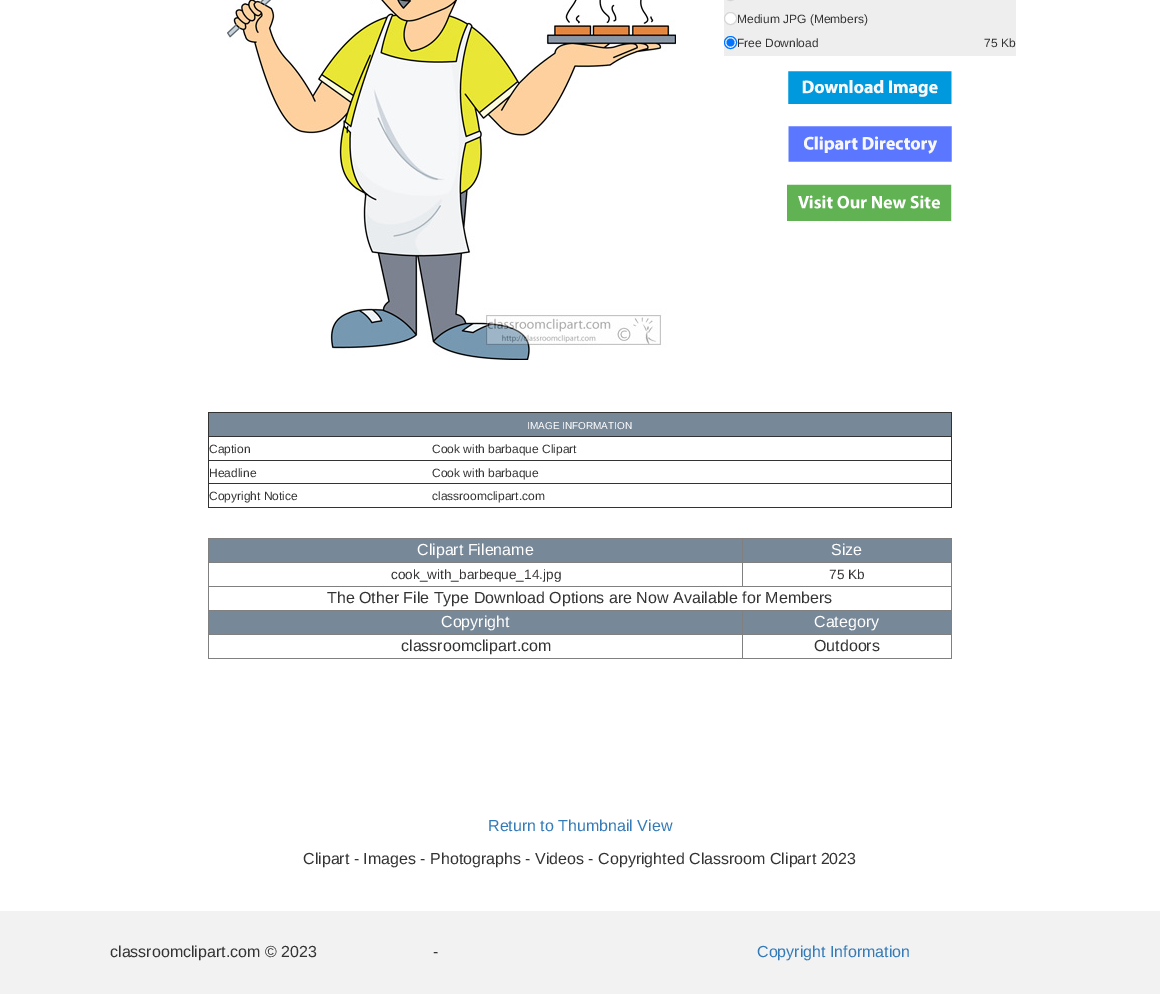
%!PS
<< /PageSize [1160 994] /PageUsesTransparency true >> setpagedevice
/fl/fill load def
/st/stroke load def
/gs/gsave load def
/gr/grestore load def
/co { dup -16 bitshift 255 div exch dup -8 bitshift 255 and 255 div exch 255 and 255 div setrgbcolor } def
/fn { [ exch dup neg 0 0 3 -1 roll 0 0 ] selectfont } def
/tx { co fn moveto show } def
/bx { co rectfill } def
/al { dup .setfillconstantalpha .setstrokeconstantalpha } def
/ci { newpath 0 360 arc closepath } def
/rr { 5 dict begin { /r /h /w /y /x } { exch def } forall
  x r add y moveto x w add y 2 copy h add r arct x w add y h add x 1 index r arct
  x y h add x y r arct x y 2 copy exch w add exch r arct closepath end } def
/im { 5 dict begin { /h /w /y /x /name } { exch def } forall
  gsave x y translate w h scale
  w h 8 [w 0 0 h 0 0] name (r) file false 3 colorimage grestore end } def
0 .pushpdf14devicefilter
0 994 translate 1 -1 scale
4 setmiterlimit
0 0 1160 994 16#FFFFFF bx
(media/1.raw) 227 0 449 360 im
724 0 292 56 16#EEEEEE bx
16#FFFFFF co
724 -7 13 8 6.5 rr fl
0.3 al
16#767676 co
724.5 -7.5 12 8 6 rr st
1 al
16#FFFFFF co
730.5 18.5 6.5 ci fl
0.3 al
16#767676 co
730.5 18.5 6 ci st
1 al
16#FFFFFF co
730.5 42.5 6 ci gs fl gr
16#0075FF co
st
730.5 42.5 4 ci fl
(media/2.raw) 788 71 164 33 im
(media/3.raw) 788 126 164 36 im
(media/4.raw) 787 184 165 37 im
208 412 744 1 16#333333 bx
951 412 1 96 16#333333 bx
208 507 744 1 16#333333 bx
208 412 1 96 16#333333 bx
209 413 742 23 16#778899 bx
208 436 744 1 16#333333 bx
208 460 744 1 16#333333 bx
208 483 744 1 16#333333 bx
208 538 744 1 16#808080 bx
951 538 1 121 16#808080 bx
208 658 744 1 16#808080 bx
208 538 1 121 16#808080 bx
209 539 742 23 16#778899 bx
742 562 210 1 16#808080 bx
208 586 744 1 16#808080 bx
742 562 1 25 16#808080 bx
208 562 535 1 16#808080 bx
742 538 1 25 16#808080 bx
209 611 742 23 16#778899 bx
742 610 210 1 16#808080 bx
742 634 210 1 16#808080 bx
742 634 1 25 16#808080 bx
208 634 535 1 16#808080 bx
742 610 1 25 16#808080 bx
208 610 535 1 16#808080 bx
0 911 1160 83 16#F2F2F2 bx
(Medium JPG \(Members\)) 737 23 /LiberationSans-Regular 12 16#333333 tx
(Free Download) 737 47 /LiberationSans-Regular 12 16#333333 tx
(75 Kb) 984 47 /LiberationSans-Regular 12 16#333333 tx
(IMAGE INFORMATION) 527 429 /LiberationSans-Regular 10 16#FFFFFF tx
(Caption) 209 453 /LiberationSans-Regular 12 16#333333 tx
(Cook with barbaque Clipart) 432 453 /LiberationSans-Regular 12 16#333333 tx
(Headline) 209 477 /LiberationSans-Regular 12 16#333333 tx
(Cook with barbaque) 432 477 /LiberationSans-Regular 12 16#333333 tx
(Copyright Notice) 209 500 /LiberationSans-Regular 12 16#333333 tx
(classroomclipart.com) 432 500 /LiberationSans-Regular 12 16#333333 tx
(Clipart Filename) 417 555 /LiberationSans-Regular 16 16#FFFFFF tx
(Size) 831 555 /LiberationSans-Regular 16 16#FFFFFF tx
(cook_with_barbeque_14.jpg) 391 579 /LiberationSans-Regular 13.6 16#333333 tx
(75 Kb) 829 579 /LiberationSans-Regular 13.6 16#333333 tx
(The Other File Type Download Options are Now Available for Members) 327 603 /LiberationSans-Regular 16 16#333333 tx
(Copyright) 441 627 /LiberationSans-Regular 16 16#FFFFFF tx
(Category) 814 627 /LiberationSans-Regular 16 16#FFFFFF tx
(classroomclipart.com) 401 651 /LiberationSans-Regular 16 16#333333 tx
(Outdoors) 814 651 /LiberationSans-Regular 16 16#333333 tx
(Return to Thumbnail View) 488 831 /LiberationSans-Regular 16 16#337AB7 tx
(Clipart - Images - Photographs - Videos - Copyrighted Classroom Clipart 2023) 303 864 /LiberationSans-Regular 16 16#333333 tx
(classroomclipart.com © 2023) 110 957 /LiberationSans-Regular 16 16#333333 tx
(-) 433 957 /LiberationSans-Regular 16 16#333333 tx
(Copyright Information) 757 957 /LiberationSans-Regular 16 16#337AB7 tx
.poppdf14devicefilter showpage
